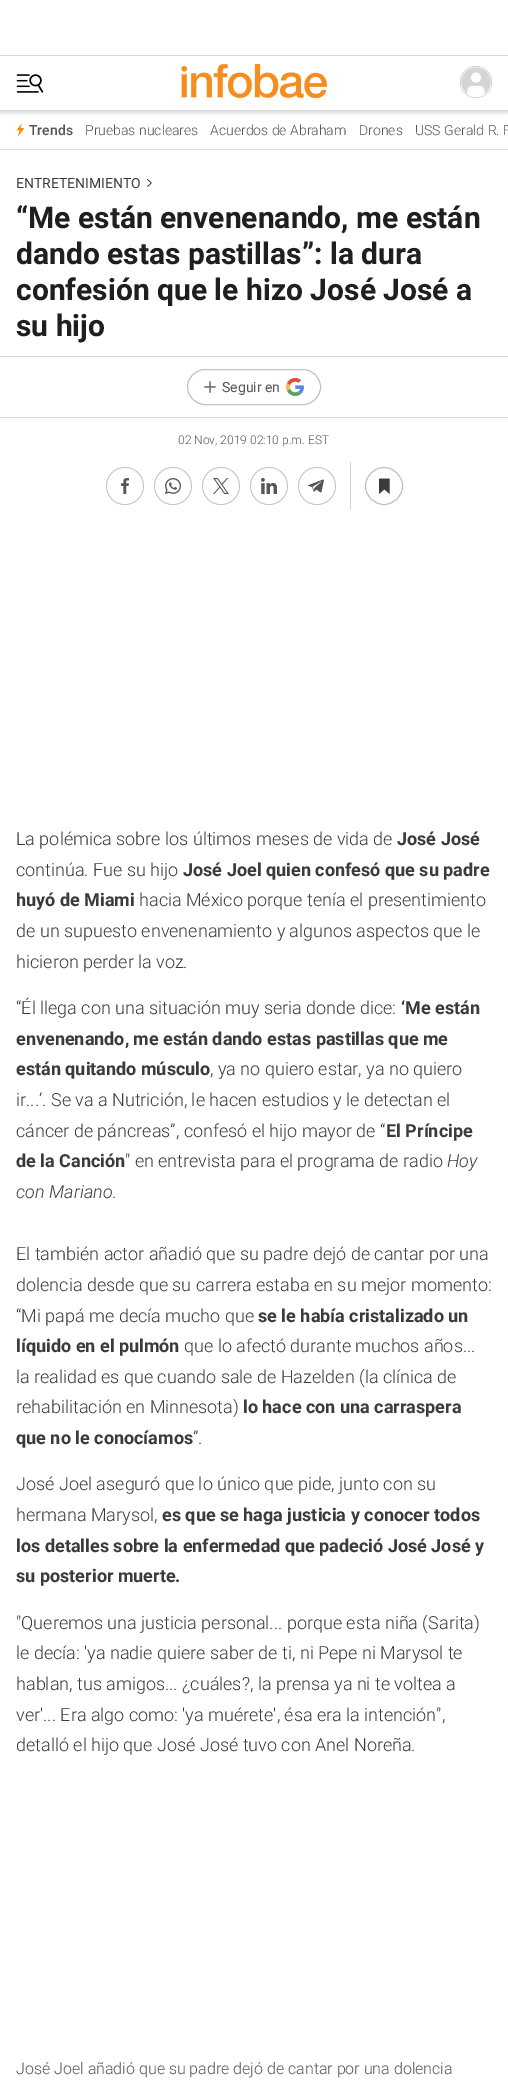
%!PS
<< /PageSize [508 2082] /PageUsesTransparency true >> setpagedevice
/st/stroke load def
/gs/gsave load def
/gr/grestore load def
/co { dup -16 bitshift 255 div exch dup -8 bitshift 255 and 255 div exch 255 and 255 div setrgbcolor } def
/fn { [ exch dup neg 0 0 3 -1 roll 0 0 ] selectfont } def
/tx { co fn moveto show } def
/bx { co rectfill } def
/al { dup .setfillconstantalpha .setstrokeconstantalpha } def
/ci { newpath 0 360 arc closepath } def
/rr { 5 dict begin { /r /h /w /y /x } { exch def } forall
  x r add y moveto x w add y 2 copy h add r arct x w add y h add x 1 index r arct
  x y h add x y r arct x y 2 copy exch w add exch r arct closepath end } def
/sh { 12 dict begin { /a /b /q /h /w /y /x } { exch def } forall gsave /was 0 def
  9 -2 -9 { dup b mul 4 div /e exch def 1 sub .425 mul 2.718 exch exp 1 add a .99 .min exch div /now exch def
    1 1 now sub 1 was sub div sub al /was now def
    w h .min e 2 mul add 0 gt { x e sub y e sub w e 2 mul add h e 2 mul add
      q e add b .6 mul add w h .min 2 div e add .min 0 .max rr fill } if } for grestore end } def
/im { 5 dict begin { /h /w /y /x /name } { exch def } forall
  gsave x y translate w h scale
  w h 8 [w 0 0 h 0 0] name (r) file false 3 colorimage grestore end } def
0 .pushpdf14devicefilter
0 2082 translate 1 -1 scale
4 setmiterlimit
0 0 508 2082 16#FFFFFF bx
gs
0 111 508 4 rectclip
16#000000 co
0 2 508 111 0 2 .15 sh
gr
0 55 508 1 16#D5D5D5 bx
0 110 508 1 16#D5D5D5 bx
(media/1.raw) 16 74 28 19 im
(media/2.raw) 181 64 147 35 im
(media/3.raw) 460 66 32 32 im
0 149 508 1 16#DEDEDE bx
(media/4.raw) 16 123 9 14 im
(media/5.raw) 147 179 5 8 im
0 356 508 1 16#D5D5D5 bx
0 417 508 1 16#D5D5D5 bx
16#C2C2C2 co
187.5 369.5 133 35 17.5 rr st
(media/6.raw) 204 381 12 12 im
(media/7.raw) 286 378 18 18 im
(media/8.raw) 106 467 38 38 im
(media/9.raw) 154 467 38 38 im
(media/10.raw) 202 467 38 38 im
(media/11.raw) 250 467 38 38 im
(media/12.raw) 298 467 38 38 im
350 462 1 48 16#D5D5D5 bx
16#C2C2C2 co
384 486 18.5 ci st
(media/13.raw) 379 478 11 16 im
(Trends) 29 135 /Roboto-Medium 14 16#555555 tx
(Pruebas nucleares) 85 135 /Roboto-Light 14 16#555555 tx
(Acuerdos de Abraham) 210 135 /Roboto-Light 14 16#555555 tx
(Drones) 359 135 /Roboto-Light 14 16#555555 tx
(USS Gerald R. F) 415 135 /Roboto-Light 14 16#555555 tx
(ENTRETENIMIENTO) 16 188 /Roboto-Regular 14 16#3B3B3B tx
(“Me están envenenando, me están) 16 228 /Roboto-Bold 30 16#1F1F1F tx
(dando estas pastillas”: la dura) 16 264 /Roboto-Bold 30 16#1F1F1F tx
(confesión que le hizo José José a) 16 300 /Roboto-Bold 30 16#1F1F1F tx
(su hijo) 16 336 /Roboto-Bold 30 16#1F1F1F tx
(Seguir en) 222 392 /Roboto-Regular 14 16#555555 tx
(02 Nov, 2019 02:10 p.m. EST) 178 444 /Roboto-Light 12 16#555555 tx
(La polémica sobre los últimos meses de vida de) 16 845 /Roboto-Light 18 16#3B3B3B tx
(José José) 397 845 /Roboto-Bold 18 16#3B3B3B tx
(continúa. Fue su hijo) 16 876 /Roboto-Light 18 16#3B3B3B tx
(José Joel quien confesó que su padre) 183 876 /Roboto-Bold 18 16#3B3B3B tx
(huyó de Miami) 16 906 /Roboto-Bold 18 16#3B3B3B tx
(hacia México porque tenía el presentimiento) 139 906 /Roboto-Light 18 16#3B3B3B tx
(de un supuesto envenenamiento y algunos aspectos que le) 16 937 /Roboto-Light 18 16#3B3B3B tx
(hicieron perder la voz.) 16 968 /Roboto-Light 18 16#3B3B3B tx
(“Él llega con una situación muy seria donde dice:) 16 1014 /Roboto-Light 18 16#3B3B3B tx
(‘Me están) 401 1014 /Roboto-Bold 18 16#3B3B3B tx
(envenenando, me están dando estas pastillas que me) 16 1045 /Roboto-Bold 18 16#3B3B3B tx
(están quitando músculo) 16 1075 /Roboto-Bold 18 16#3B3B3B tx
(, ya no quiero estar, ya no quiero) 210 1075 /Roboto-Light 18 16#3B3B3B tx
(ir...’. Se va a Nutrición, le hacen estudios y le detectan el) 16 1106 /Roboto-Light 18 16#3B3B3B tx
(cáncer de páncreas”, confesó el hijo mayor de “) 16 1137 /Roboto-Light 18 16#3B3B3B tx
(El Príncipe) 386 1137 /Roboto-Bold 18 16#3B3B3B tx
(de la Canción) 16 1167 /Roboto-Bold 18 16#3B3B3B tx
(" en entrevista para el programa de radio) 125 1167 /Roboto-Light 18 16#3B3B3B tx
(Hoy) 447 1167 /Roboto-LightItalic 18 16#3B3B3B tx
(con Mariano.) 16 1198 /Roboto-LightItalic 18 16#3B3B3B tx
(El también actor añadió que su padre dejó de cantar por una) 16 1260 /Roboto-Light 18 16#3B3B3B tx
(dolencia desde que su carrera estaba en su mejor momento:) 16 1291 /Roboto-Light 18 16#3B3B3B tx
(“Mi papá me decía mucho que) 16 1322 /Roboto-Light 18 16#3B3B3B tx
(se le había cristalizado un) 258 1322 /Roboto-Bold 18 16#3B3B3B tx
(líquido en el pulmón) 16 1352 /Roboto-Bold 18 16#3B3B3B tx
(que lo afectó durante muchos años...) 184 1352 /Roboto-Light 18 16#3B3B3B tx
(la realidad es que cuando sale de Hazelden \(la clínica de) 16 1383 /Roboto-Light 18 16#3B3B3B tx
(rehabilitación en Minnesota\)) 16 1413 /Roboto-Light 18 16#3B3B3B tx
(lo hace con una carraspera) 243 1413 /Roboto-Bold 18 16#3B3B3B tx
(que no le conocíamos) 16 1444 /Roboto-Bold 18 16#3B3B3B tx
(”.) 193 1444 /Roboto-Light 18 16#3B3B3B tx
(José Joel aseguró que lo único que pide, junto con su) 16 1490 /Roboto-Light 18 16#3B3B3B tx
(hermana Marysol,) 16 1521 /Roboto-Light 18 16#3B3B3B tx
(es que se haga justicia y conocer todos) 162 1521 /Roboto-Bold 18 16#3B3B3B tx
(los detalles sobre la enfermedad que padeció José José y) 16 1552 /Roboto-Bold 18 16#3B3B3B tx
(su posterior muerte.) 16 1582 /Roboto-Bold 18 16#3B3B3B tx
("Queremos una justicia personal... porque esta niña \(Sarita\)) 16 1629 /Roboto-Light 18 16#3B3B3B tx
(le decía: 'ya nadie quiere saber de ti, ni Pepe ni Marysol te) 16 1659 /Roboto-Light 18 16#3B3B3B tx
(hablan, tus amigos... ¿cuáles?, la prensa ya ni te voltea a) 16 1690 /Roboto-Light 18 16#3B3B3B tx
(ver'... Era algo como: 'ya muérete', ésa era la intención",) 16 1721 /Roboto-Light 18 16#3B3B3B tx
(detalló el hijo que José José tuvo con Anel Noreña.) 16 1751 /Roboto-Light 18 16#3B3B3B tx
(José Joel añadió que su padre dejó de cantar por una dolencia) 16 2074 /Roboto-Light 16 16#555555 tx
.poppdf14devicefilter showpage
